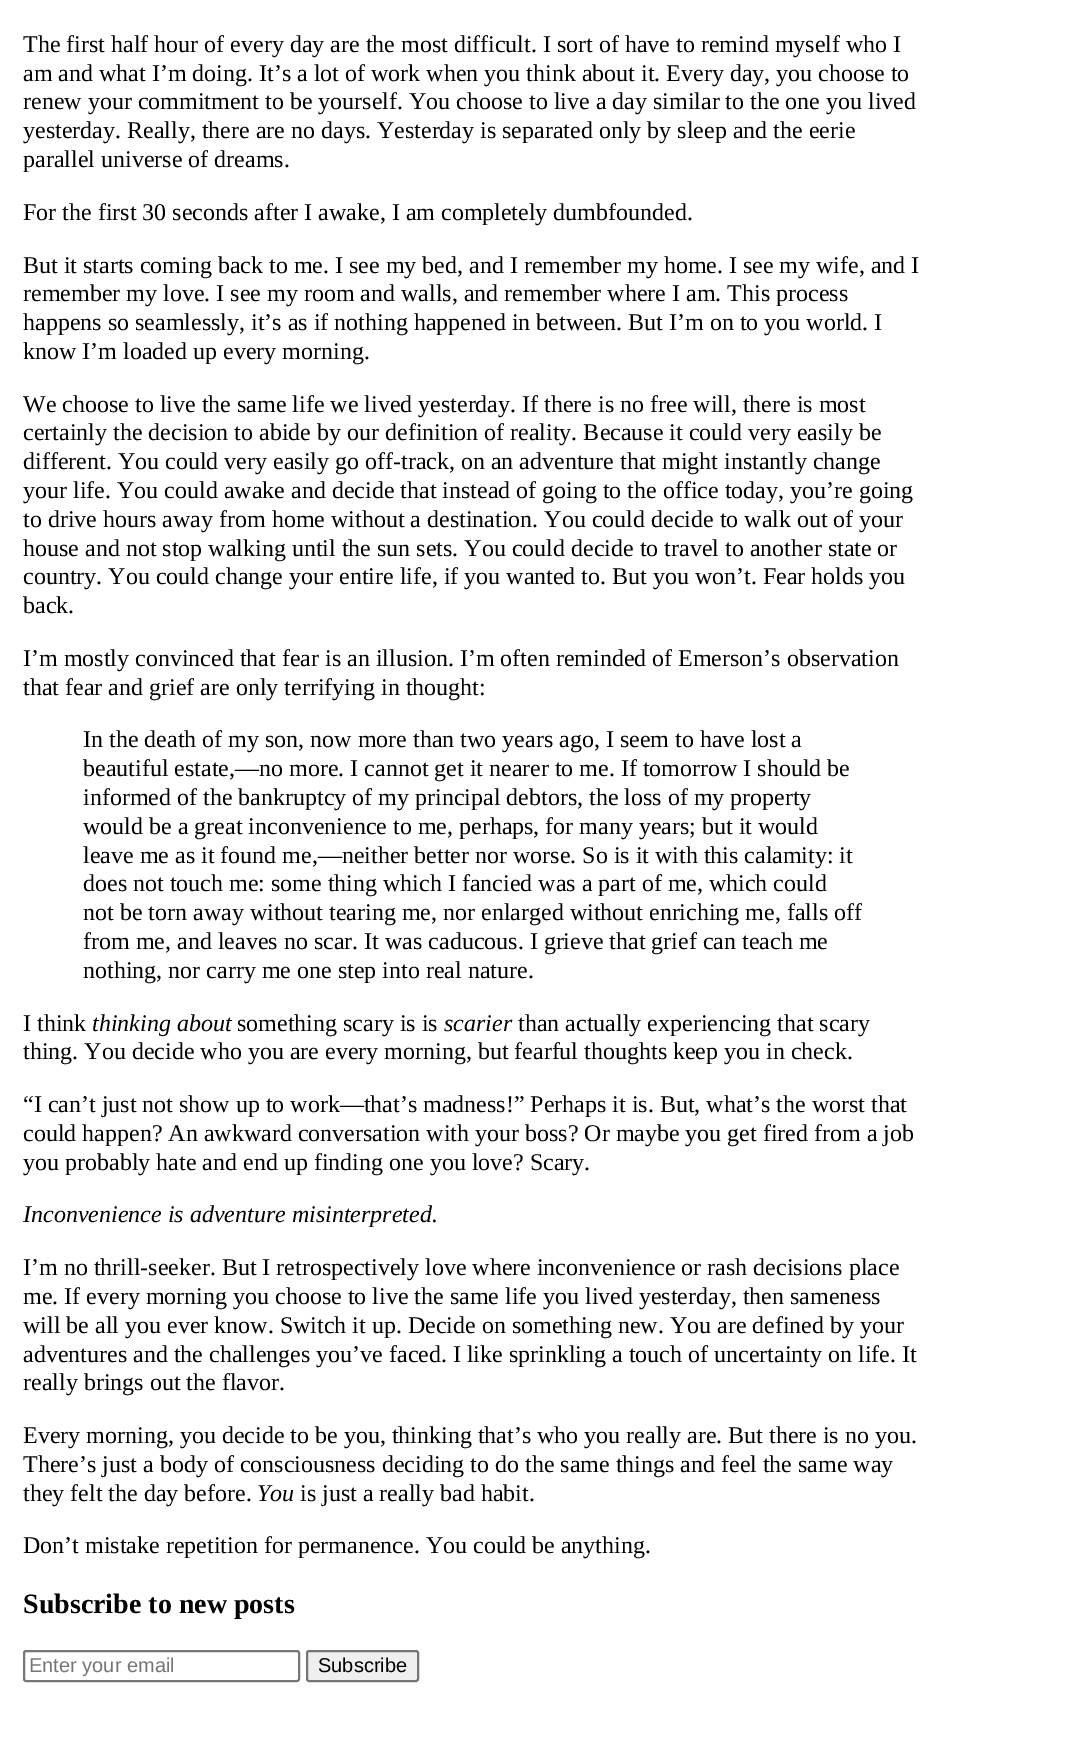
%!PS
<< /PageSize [1083 1756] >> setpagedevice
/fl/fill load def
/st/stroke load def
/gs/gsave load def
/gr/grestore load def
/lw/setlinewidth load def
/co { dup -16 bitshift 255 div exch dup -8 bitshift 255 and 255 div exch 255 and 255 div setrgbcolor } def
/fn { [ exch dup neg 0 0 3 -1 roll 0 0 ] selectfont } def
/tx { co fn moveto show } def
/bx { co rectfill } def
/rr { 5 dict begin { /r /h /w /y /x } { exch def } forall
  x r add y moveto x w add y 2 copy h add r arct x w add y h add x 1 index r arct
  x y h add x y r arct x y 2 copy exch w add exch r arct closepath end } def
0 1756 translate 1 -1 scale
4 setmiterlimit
0 0 1083 1756 16#FFFFFF bx
16#767676 co
2 lw
24 1651 275 30 2 rr st
16#EFEFEF co
307 1651 111 30 2 rr gs fl gr
16#767676 co
st
(The first half hour of every day are the most difficult. I sort of have to remind myself who I) 23 52 /LiberationSerif-Regular 24 16#000000 tx
(am and what I’m doing. It’s a lot of work when you think about it. Every day, you choose to) 23 81 /LiberationSerif-Regular 24 16#000000 tx
(renew your commitment to be yourself. You choose to live a day similar to the one you lived) 23 109 /LiberationSerif-Regular 24 16#000000 tx
(yesterday. Really, there are no days. Yesterday is separated only by sleep and the eerie) 23 138 /LiberationSerif-Regular 24 16#000000 tx
(parallel universe of dreams.) 23 167 /LiberationSerif-Regular 24 16#000000 tx
(For the first 30 seconds after I awake, I am completely dumbfounded.) 23 220 /LiberationSerif-Regular 24 16#000000 tx
(But it starts coming back to me. I see my bed, and I remember my home. I see my wife, and I) 23 273 /LiberationSerif-Regular 24 16#000000 tx
(remember my love. I see my room and walls, and remember where I am. This process) 23 301 /LiberationSerif-Regular 24 16#000000 tx
(happens so seamlessly, it’s as if nothing happened in between. But I’m on to you world. I) 23 330 /LiberationSerif-Regular 24 16#000000 tx
(know I’m loaded up every morning.) 23 359 /LiberationSerif-Regular 24 16#000000 tx
(We choose to live the same life we lived yesterday. If there is no free will, there is most) 23 412 /LiberationSerif-Regular 24 16#000000 tx
(certainly the decision to abide by our definition of reality. Because it could very easily be) 23 440 /LiberationSerif-Regular 24 16#000000 tx
(different. You could very easily go off-track, on an adventure that might instantly change) 23 469 /LiberationSerif-Regular 24 16#000000 tx
(your life. You could awake and decide that instead of going to the office today, you’re going) 23 498 /LiberationSerif-Regular 24 16#000000 tx
(to drive hours away from home without a destination. You could decide to walk out of your) 23 527 /LiberationSerif-Regular 24 16#000000 tx
(house and not stop walking until the sun sets. You could decide to travel to another state or) 23 556 /LiberationSerif-Regular 24 16#000000 tx
(country. You could change your entire life, if you wanted to. But you won’t. Fear holds you) 23 584 /LiberationSerif-Regular 24 16#000000 tx
(back.) 23 613 /LiberationSerif-Regular 24 16#000000 tx
(I’m mostly convinced that fear is an illusion. I’m often reminded of Emerson’s observation) 23 666 /LiberationSerif-Regular 24 16#000000 tx
(that fear and grief are only terrifying in thought:) 23 695 /LiberationSerif-Regular 24 16#000000 tx
(In the death of my son, now more than two years ago, I seem to have lost a) 83 747 /LiberationSerif-Regular 24 16#000000 tx
(beautiful estate,—no more. I cannot get it nearer to me. If tomorrow I should be) 83 776 /LiberationSerif-Regular 24 16#000000 tx
(informed of the bankruptcy of my principal debtors, the loss of my property) 83 805 /LiberationSerif-Regular 24 16#000000 tx
(would be a great inconvenience to me, perhaps, for many years; but it would) 83 834 /LiberationSerif-Regular 24 16#000000 tx
(leave me as it found me,—neither better nor worse. So is it with this calamity: it) 83 863 /LiberationSerif-Regular 24 16#000000 tx
(does not touch me: some thing which I fancied was a part of me, which could) 83 891 /LiberationSerif-Regular 24 16#000000 tx
(not be torn away without tearing me, nor enlarged without enriching me, falls off) 83 920 /LiberationSerif-Regular 24 16#000000 tx
(from me, and leaves no scar. It was caducous. I grieve that grief can teach me) 83 949 /LiberationSerif-Regular 24 16#000000 tx
(nothing, nor carry me one step into real nature.) 83 978 /LiberationSerif-Regular 24 16#000000 tx
(I think) 23 1031 /LiberationSerif-Regular 24 16#000000 tx
(thinking about) 92 1031 /LiberationSerif-Italic 24 16#000000 tx
(something scary is is) 237 1031 /LiberationSerif-Regular 24 16#000000 tx
(scarier) 444 1031 /LiberationSerif-Italic 24 16#000000 tx
(than actually experiencing that scary) 518 1031 /LiberationSerif-Regular 24 16#000000 tx
(thing. You decide who you are every morning, but fearful thoughts keep you in check.) 23 1059 /LiberationSerif-Regular 24 16#000000 tx
(“I can’t just not show up to work—that’s madness!” Perhaps it is. But, what’s the worst that) 23 1112 /LiberationSerif-Regular 24 16#000000 tx
(could happen? An awkward conversation with your boss? Or maybe you get fired from a job) 23 1141 /LiberationSerif-Regular 24 16#000000 tx
(you probably hate and end up finding one you love? Scary.) 23 1170 /LiberationSerif-Regular 24 16#000000 tx
(Inconvenience is adventure misinterpreted.) 23 1222 /LiberationSerif-Italic 24 16#000000 tx
(I’m no thrill-seeker. But I retrospectively love where inconvenience or rash decisions place) 23 1275 /LiberationSerif-Regular 24 16#000000 tx
(me. If every morning you choose to live the same life you lived yesterday, then sameness) 23 1304 /LiberationSerif-Regular 24 16#000000 tx
(will be all you ever know. Switch it up. Decide on something new. You are defined by your) 23 1333 /LiberationSerif-Regular 24 16#000000 tx
(adventures and the challenges you’ve faced. I like sprinkling a touch of uncertainty on life. It) 23 1362 /LiberationSerif-Regular 24 16#000000 tx
(really brings out the flavor.) 23 1390 /LiberationSerif-Regular 24 16#000000 tx
(Every morning, you decide to be you, thinking that’s who you really are. But there is no you.) 23 1443 /LiberationSerif-Regular 24 16#000000 tx
(There’s just a body of consciousness deciding to do the same things and feel the same way) 23 1472 /LiberationSerif-Regular 24 16#000000 tx
(they felt the day before.) 23 1501 /LiberationSerif-Regular 24 16#000000 tx
(You) 257 1501 /LiberationSerif-Italic 24 16#000000 tx
(is just a really bad habit.) 300 1501 /LiberationSerif-Regular 24 16#000000 tx
(Don’t mistake repetition for permanence. You could be anything.) 23 1553 /LiberationSerif-Regular 24 16#000000 tx
(Subscribe to new posts) 23 1613 /LiberationSerif-Bold 28 16#000000 tx
(Enter your email) 29 1672 /LiberationSans-Regular 20 16#757575 tx
(Subscribe) 318 1672 /LiberationSans-Regular 20 16#000000 tx
showpage
